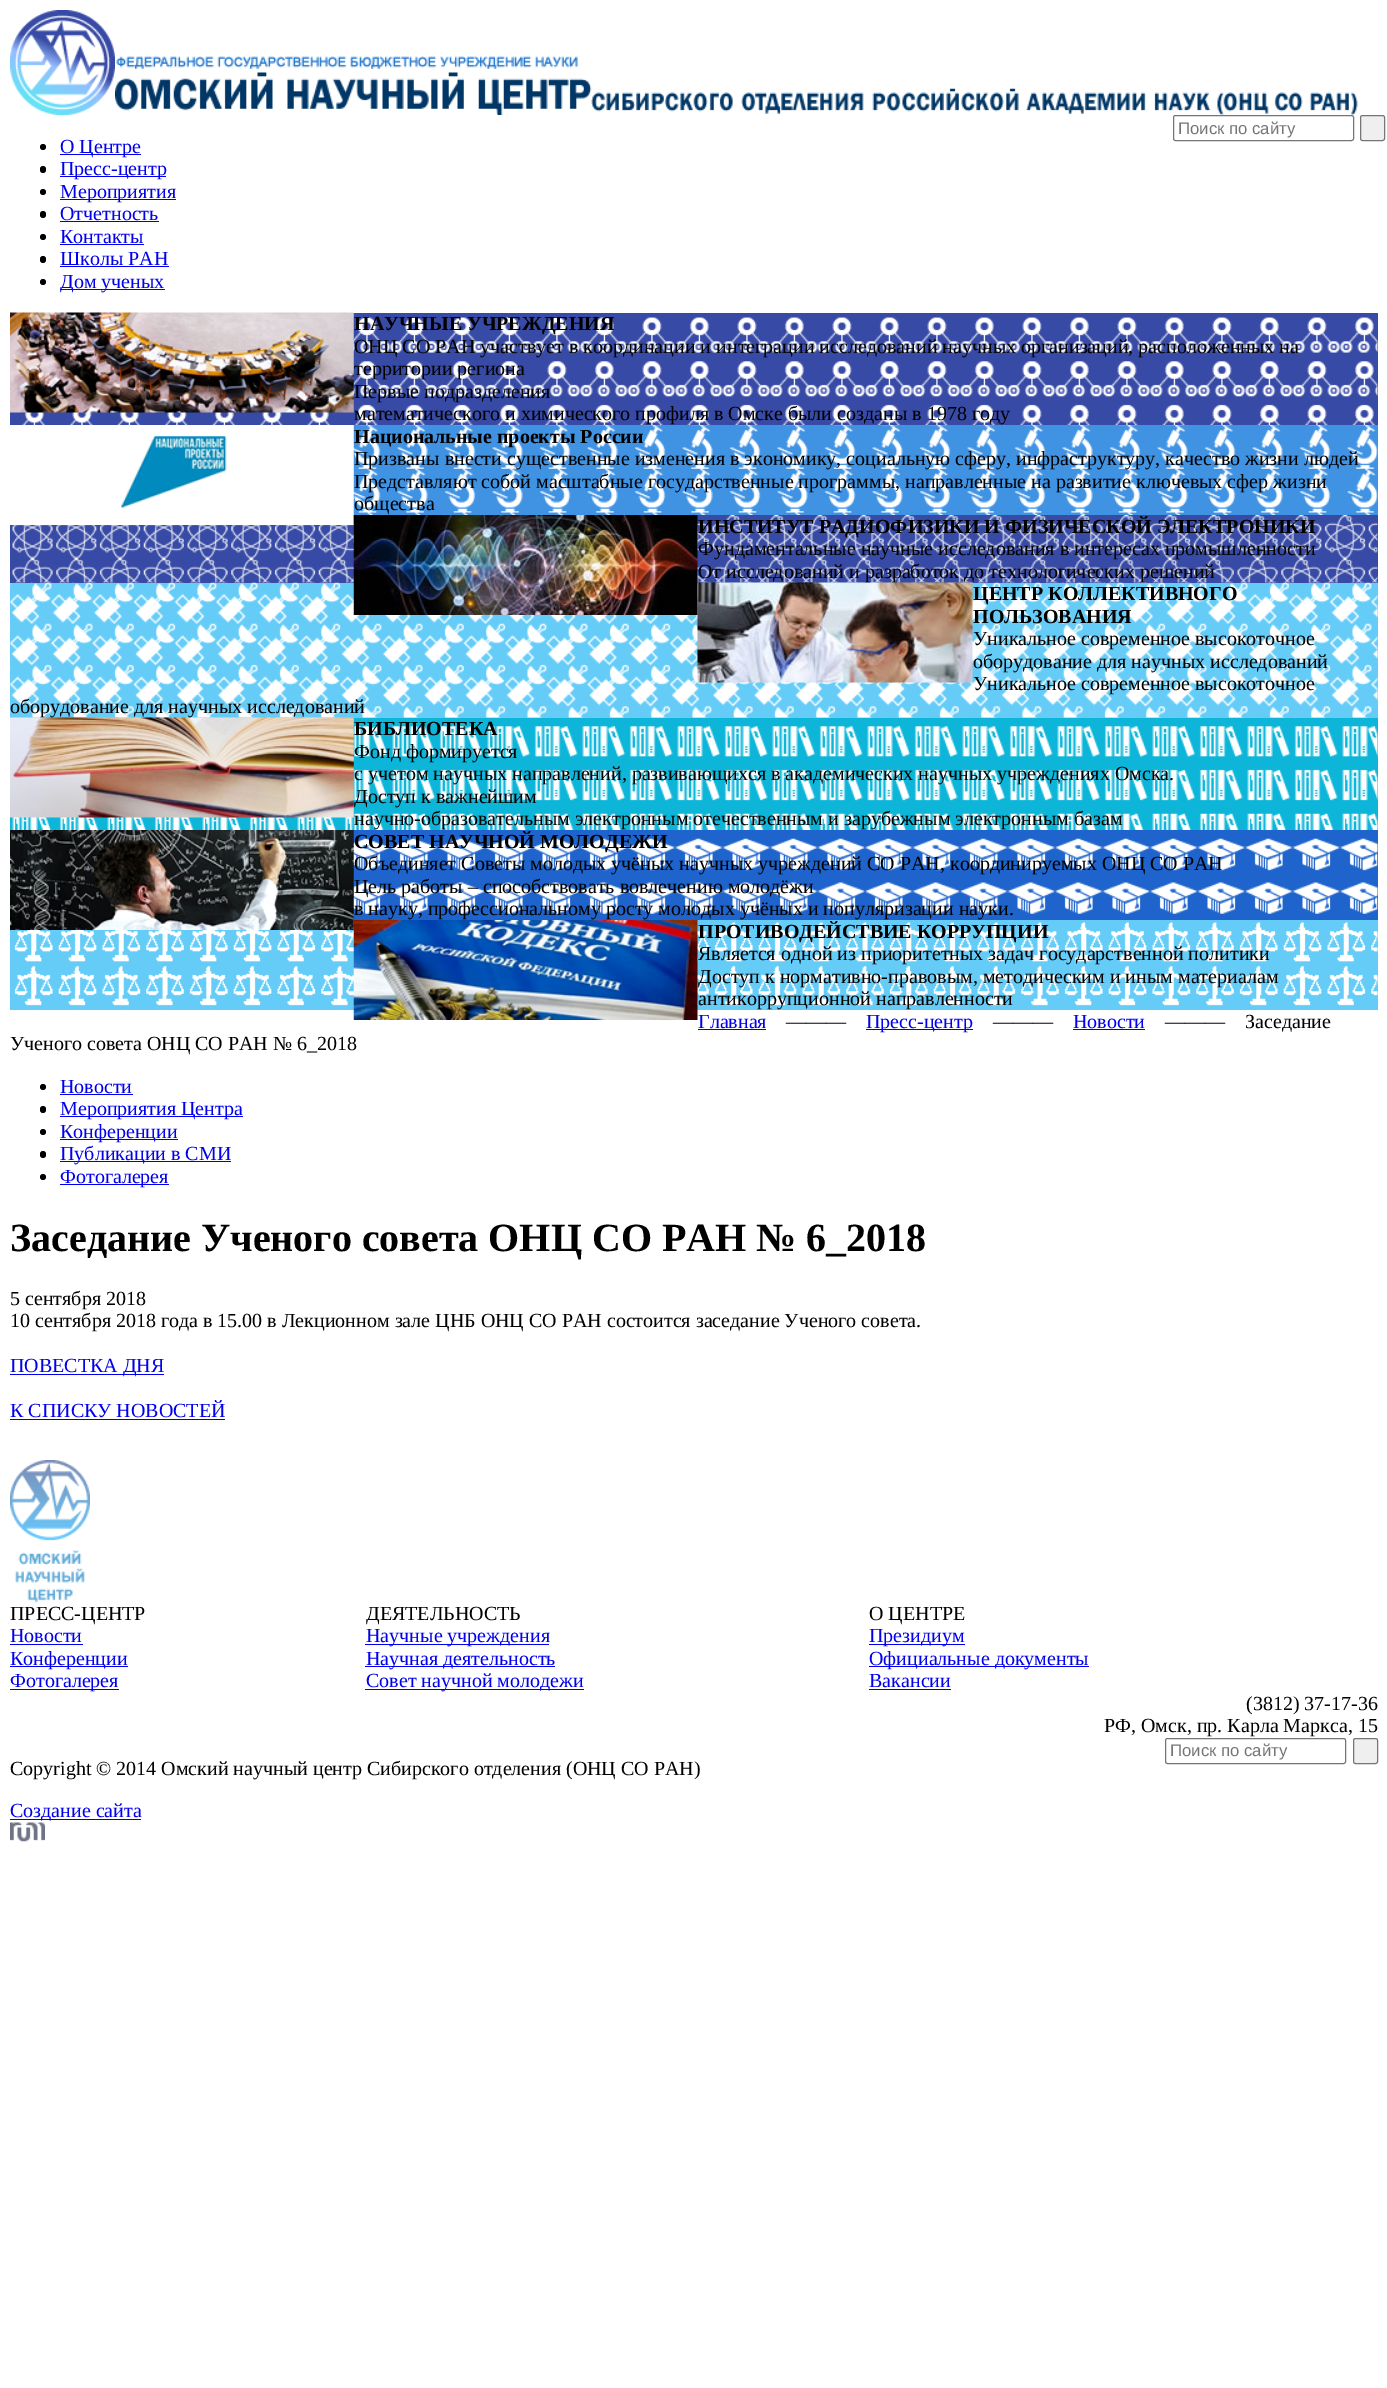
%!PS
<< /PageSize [1387 2388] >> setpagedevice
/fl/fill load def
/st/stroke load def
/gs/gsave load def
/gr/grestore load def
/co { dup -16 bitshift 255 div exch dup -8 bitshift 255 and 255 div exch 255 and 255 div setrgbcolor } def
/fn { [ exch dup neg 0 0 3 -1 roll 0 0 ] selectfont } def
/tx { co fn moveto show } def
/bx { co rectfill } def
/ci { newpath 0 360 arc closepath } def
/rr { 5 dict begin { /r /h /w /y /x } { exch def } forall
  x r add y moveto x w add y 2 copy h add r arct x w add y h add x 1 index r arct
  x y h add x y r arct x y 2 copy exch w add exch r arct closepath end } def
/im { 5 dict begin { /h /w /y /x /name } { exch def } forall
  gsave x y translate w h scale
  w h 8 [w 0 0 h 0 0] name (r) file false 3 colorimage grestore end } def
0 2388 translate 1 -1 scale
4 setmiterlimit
0 0 1387 2388 16#FFFFFF bx
(media/1.raw) 10 10 105 105 im
(media/2.raw) 115 56 477 59 im
(media/3.raw) 591 88 767 27 im
16#767676 co
1173.5 115.5 180 25 2 rr st
16#EFEFEF co
1360.5 115.5 24 25 2 rr gs fl gr
16#767676 co
st
16#000000 co
43 147 3 ci fl
60 154 81 1 16#0000EE bx
16#000000 co
40 166 6 7 3 rr fl
60 176 106 1 16#0000EE bx
16#000000 co
43 192 3 ci fl
60 199 116 1 16#0000EE bx
16#000000 co
40 211 6 7 3 rr fl
60 221 99 1 16#0000EE bx
16#000000 co
43 237 3 ci fl
60 244 84 1 16#0000EE bx
16#000000 co
40 256 6 7 3 rr fl
60 266 109 1 16#0000EE bx
16#000000 co
43 282 3 ci fl
60 289 105 1 16#0000EE bx
10 313 1368 112 16#374AA6 bx
(media/4.raw) 22 317 1356 108 im
(media/5.raw) 10 312 344 101 im
353 425 1025 90 16#4092E3 bx
(media/6.raw) 353 425 1025 90 im
10 515 1368 68 16#374AA6 bx
(media/8.raw) 12 515 1366 68 im
(media/7.raw) 10 425 344 100 im
10 583 1368 135 16#65CCF8 bx
(media/10.raw) 10 582 1368 136 im
(media/9.raw) 353 515 345 100 im
(media/11.raw) 697 582 276 101 im
10 718 1368 112 16#0DB5D9 bx
(media/12.raw) 12 726 1366 104 im
(media/13.raw) 10 717 344 101 im
353 830 1025 90 16#1E64CC bx
(media/14.raw) 353 838 1025 76 im
10 920 1368 90 16#65CCF8 bx
(media/16.raw) 14 922 1364 88 im
(media/15.raw) 10 830 344 100 im
(media/17.raw) 353 920 345 100 im
698 1029 68 1 16#0000EE bx
866 1029 107 1 16#0000EE bx
1073 1029 72 1 16#0000EE bx
16#000000 co
43 1087 3 ci fl
60 1094 73 1 16#0000EE bx
16#000000 co
40 1106 6 7 3 rr fl
60 1116 183 1 16#0000EE bx
16#000000 co
43 1132 3 ci fl
60 1139 118 1 16#0000EE bx
16#000000 co
40 1151 6 7 3 rr fl
60 1161 171 1 16#0000EE bx
16#000000 co
43 1177 3 ci fl
60 1184 109 1 16#0000EE bx
10 1374 154 1 16#0000EE bx
10 1419 215 1 16#0000EE bx
(media/18.raw) 10 1460 80 143 im
10 1644 73 1 16#0000EE bx
365 1644 184 1 16#0000EE bx
869 1644 96 1 16#0000EE bx
10 1666 118 1 16#0000EE bx
365 1666 190 1 16#0000EE bx
869 1666 220 1 16#0000EE bx
10 1689 109 1 16#0000EE bx
365 1689 219 1 16#0000EE bx
869 1689 82 1 16#0000EE bx
16#767676 co
1165.5 1738.5 180 25 2 rr st
16#EFEFEF co
1353.5 1738.5 24 25 2 rr gs fl gr
16#767676 co
st
10 1819 131 1 16#0000EE bx
(media/19.raw) 10 1822 35 20 im
(Поиск по сайту) 1178 134 /LiberationSans-Regular 16.75 16#757575 tx
(О Центре) 60 153 /LiberationSerif-Regular 20 16#0000EE tx
(Пресс-центр) 60 175 /LiberationSerif-Regular 20 16#0000EE tx
(Мероприятия) 60 198 /LiberationSerif-Regular 20 16#0000EE tx
(Отчетность) 60 220 /LiberationSerif-Regular 20 16#0000EE tx
(Контакты) 60 243 /LiberationSerif-Regular 20 16#0000EE tx
(Школы РАН) 60 265 /LiberationSerif-Regular 20 16#0000EE tx
(Дом ученых) 60 288 /LiberationSerif-Regular 20 16#0000EE tx
(НАУЧНЫЕ УЧРЕЖДЕНИЯ) 354 330 /LiberationSerif-Bold 20 16#000000 tx
(ОНЦ СО РАН участвует в координации и интеграции исследований научных организаций, расположенных на) 354 353 /LiberationSerif-Regular 20 16#000000 tx
(территории региона) 354 375 /LiberationSerif-Regular 20 16#000000 tx
(Первые подразделения) 354 398 /LiberationSerif-Regular 20 16#000000 tx
(математического и химического профиля в Омске были созданы в 1978 году) 354 420 /LiberationSerif-Regular 20 16#000000 tx
(Национальные проекты России) 354 443 /LiberationSerif-Bold 20 16#000000 tx
(Призваны внести существенные изменения в экономику, социальную сферу, инфраструктуру, качество жизни людей) 354 465 /LiberationSerif-Regular 20 16#000000 tx
(Представляют собой масштабные государственные программы, направленные на развитие ключевых сфер жизни) 354 488 /LiberationSerif-Regular 20 16#000000 tx
(общества) 354 510 /LiberationSerif-Regular 20 16#000000 tx
(ИНСТИТУТ РАДИОФИЗИКИ И ФИЗИЧЕСКОЙ ЭЛЕКТРОНИКИ) 698 533 /LiberationSerif-Bold 20 16#000000 tx
(Фундаментальные научные исследования в интересах промышленности) 698 555 /LiberationSerif-Regular 20 16#000000 tx
(От исследований и разработок до технологических решений) 698 578 /LiberationSerif-Regular 20 16#000000 tx
(ЦЕНТР КОЛЛЕКТИВНОГО) 973 600 /LiberationSerif-Bold 20 16#000000 tx
(ПОЛЬЗОВАНИЯ) 973 623 /LiberationSerif-Bold 20 16#000000 tx
(Уникальное современное высокоточное) 973 645 /LiberationSerif-Regular 20 16#000000 tx
(оборудование для научных исследований) 973 668 /LiberationSerif-Regular 20 16#000000 tx
(Уникальное современное высокоточное) 973 690 /LiberationSerif-Regular 20 16#000000 tx
(оборудование для научных исследований) 10 713 /LiberationSerif-Regular 20 16#000000 tx
(БИБЛИОТЕКА) 354 735 /LiberationSerif-Bold 20 16#000000 tx
(Фонд формируется) 354 758 /LiberationSerif-Regular 20 16#000000 tx
(с учетом научных направлений, развивающихся в академических научных учреждениях Омска.) 354 780 /LiberationSerif-Regular 20 16#000000 tx
(Доступ к важнейшим) 354 803 /LiberationSerif-Regular 20 16#000000 tx
(научно-образовательным электронным отечественным и зарубежным электронным базам) 354 825 /LiberationSerif-Regular 20 16#000000 tx
(СОВЕТ НАУЧНОЙ МОЛОДЕЖИ) 354 848 /LiberationSerif-Bold 20 16#000000 tx
(Объединяет Советы молодых учёных научных учреждений СО РАН, координируемых ОНЦ СО РАН) 354 870 /LiberationSerif-Regular 20 16#000000 tx
(Цель работы – способствовать вовлечению молодёжи) 354 893 /LiberationSerif-Regular 20 16#000000 tx
(в науку, профессиональному росту молодых учёных и популяризации науки.) 354 915 /LiberationSerif-Regular 20 16#000000 tx
(ПРОТИВОДЕЙСТВИЕ КОРРУПЦИИ) 698 938 /LiberationSerif-Bold 20 16#000000 tx
(Является одной из приоритетных задач государственной политики) 698 960 /LiberationSerif-Regular 20 16#000000 tx
(Доступ к нормативно-правовым, методическим и иным материалам) 698 983 /LiberationSerif-Regular 20 16#000000 tx
(антикоррупционной направленности) 698 1005 /LiberationSerif-Regular 20 16#000000 tx
(Главная) 698 1028 /LiberationSerif-Regular 20 16#0000EE tx
(———) 786 1028 /LiberationSerif-Regular 20 16#000000 tx
(Пресс-центр) 866 1028 /LiberationSerif-Regular 20 16#0000EE tx
(———) 993 1028 /LiberationSerif-Regular 20 16#000000 tx
(Новости) 1073 1028 /LiberationSerif-Regular 20 16#0000EE tx
(———) 1165 1028 /LiberationSerif-Regular 20 16#000000 tx
(Заседание) 1245 1028 /LiberationSerif-Regular 20 16#000000 tx
(Ученого совета ОНЦ СО РАН № 6_2018) 10 1050 /LiberationSerif-Regular 20 16#000000 tx
(Новости) 60 1093 /LiberationSerif-Regular 20 16#0000EE tx
(Мероприятия Центра) 60 1115 /LiberationSerif-Regular 20 16#0000EE tx
(Конференции) 60 1138 /LiberationSerif-Regular 20 16#0000EE tx
(Публикации в СМИ) 60 1160 /LiberationSerif-Regular 20 16#0000EE tx
(Фотогалерея) 60 1183 /LiberationSerif-Regular 20 16#0000EE tx
(Заседание Ученого совета ОНЦ СО РАН № 6_2018) 10 1251 /LiberationSerif-Bold 40 16#000000 tx
(5 сентября 2018) 10 1305 /LiberationSerif-Regular 20 16#000000 tx
(10 сентября 2018 года в 15.00 в Лекционном зале ЦНБ ОНЦ СО РАН состоится заседание Ученого совета.) 10 1327 /LiberationSerif-Regular 20 16#000000 tx
(ПОВЕСТКА ДНЯ) 10 1372 /LiberationSerif-Regular 20 16#0000EE tx
(К СПИСКУ НОВОСТЕЙ) 10 1417 /LiberationSerif-Regular 20 16#0000EE tx
(ПРЕСС-ЦЕНТР) 10 1620 /LiberationSerif-Regular 20 16#000000 tx
(ДЕЯТЕЛЬНОСТЬ) 366 1620 /LiberationSerif-Regular 20 16#000000 tx
(О ЦЕНТРЕ) 869 1620 /LiberationSerif-Regular 20 16#000000 tx
(Новости) 10 1642 /LiberationSerif-Regular 20 16#0000EE tx
(Научные учреждения) 366 1642 /LiberationSerif-Regular 20 16#0000EE tx
(Президиум) 869 1642 /LiberationSerif-Regular 20 16#0000EE tx
(Конференции) 10 1665 /LiberationSerif-Regular 20 16#0000EE tx
(Научная деятельность) 366 1665 /LiberationSerif-Regular 20 16#0000EE tx
(Официальные документы) 869 1665 /LiberationSerif-Regular 20 16#0000EE tx
(Фотогалерея) 10 1687 /LiberationSerif-Regular 20 16#0000EE tx
(Совет научной молодежи) 366 1687 /LiberationSerif-Regular 20 16#0000EE tx
(Вакансии) 869 1687 /LiberationSerif-Regular 20 16#0000EE tx
(\(3812\) 37-17-36) 1246 1710 /LiberationSerif-Regular 20 16#000000 tx
(РФ, Омск, пр. Карла Маркса, 15) 1104 1732 /LiberationSerif-Regular 20 16#000000 tx
(Поиск по сайту) 1170 1756 /LiberationSans-Regular 16.75 16#757575 tx
(Copyright © 2014 Омский научный центр Сибирского отделения \(ОНЦ СО РАН\)) 10 1775 /LiberationSerif-Regular 20 16#000000 tx
(Создание сайта) 10 1817 /LiberationSerif-Regular 20 16#0000EE tx
showpage
